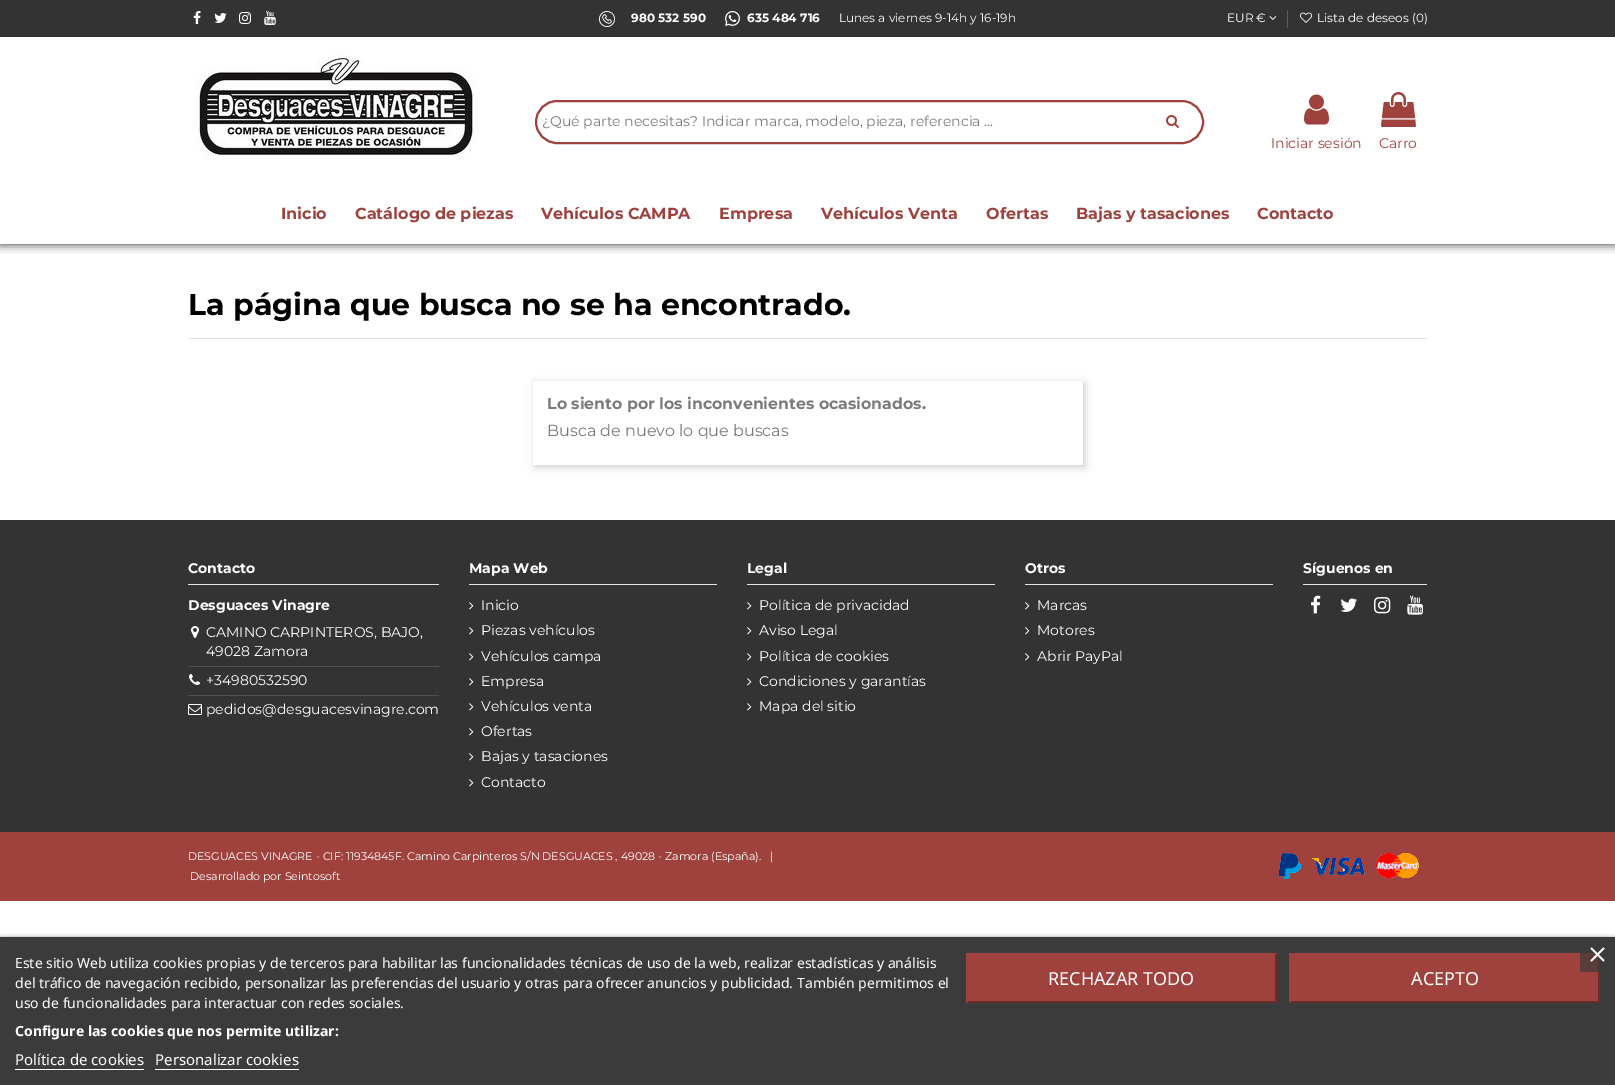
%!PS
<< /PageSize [1615 1085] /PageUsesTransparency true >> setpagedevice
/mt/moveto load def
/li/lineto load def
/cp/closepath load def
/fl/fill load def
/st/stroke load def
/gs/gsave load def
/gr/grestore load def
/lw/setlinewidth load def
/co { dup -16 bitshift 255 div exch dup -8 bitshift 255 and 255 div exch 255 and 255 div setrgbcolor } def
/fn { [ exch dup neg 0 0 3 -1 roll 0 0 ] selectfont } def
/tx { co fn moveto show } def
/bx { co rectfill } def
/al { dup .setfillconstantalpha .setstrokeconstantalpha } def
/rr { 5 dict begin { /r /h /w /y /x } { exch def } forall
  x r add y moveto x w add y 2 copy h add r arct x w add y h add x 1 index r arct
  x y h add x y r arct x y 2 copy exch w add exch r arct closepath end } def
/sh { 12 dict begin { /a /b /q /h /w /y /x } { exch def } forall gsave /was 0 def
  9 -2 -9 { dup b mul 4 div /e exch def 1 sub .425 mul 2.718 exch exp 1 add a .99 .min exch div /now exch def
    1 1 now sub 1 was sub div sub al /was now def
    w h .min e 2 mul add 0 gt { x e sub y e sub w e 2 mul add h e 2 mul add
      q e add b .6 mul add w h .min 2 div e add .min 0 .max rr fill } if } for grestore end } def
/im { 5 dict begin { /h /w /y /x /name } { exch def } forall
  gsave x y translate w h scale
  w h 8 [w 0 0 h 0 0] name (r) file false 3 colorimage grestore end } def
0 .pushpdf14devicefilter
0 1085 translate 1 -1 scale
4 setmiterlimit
0 0 1615 1085 16#FFFFFF bx
gs
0 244 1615 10 rectclip
16#212529 co
0 0 1615 244 0 5 1 sh
gr
0 0 1615 37 16#333333 bx
(media/1.raw) 193 11 8 13 im
(media/2.raw) 214 13 13 10 im
(media/3.raw) 239 12 12 12 im
(media/4.raw) 264 11 12 14 im
(media/5.raw) 599 11 16 16 im
(media/6.raw) 725 11 15 15 im
(media/7.raw) 1269 16 8 4 im
1287 10 1 18 16#5C5C5C bx
(media/8.raw) 1300 12 12 11 im
(media/9.raw) 196 52 279 104 im
16#9F423E co
2 lw
536 101 667 42 21 rr st
(media/10.raw) 1166 115 13 13 im
(media/11.raw) 1304 94 25 31 im
(media/12.raw) 1381 92 35 35 im
188 338 1240 1 16#E3E3E3 bx
gs
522 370 mt 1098 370 li 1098 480 li 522 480 li cp 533 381 mt 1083 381 li 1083 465 li 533 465 li cp eoclip newpath
16#000000 co
535 383 550 84 0 4 .2 sh
gr
0 520 1615 312 16#333333 bx
188 584 251 1 16#E3E3E3 bx
(media/13.raw) 191 626 8 12 im
188 666 251 1 16#4F4F4F bx
(media/14.raw) 189 674 11 11 im
188 695 251 1 16#4F4F4F bx
(media/15.raw) 188 704 14 11 im
469 584 248 1 16#E3E3E3 bx
(media/16.raw) 469 602 5 8 im
(media/16.raw) 469 627 5 8 im
(media/16.raw) 469 653 5 8 im
(media/16.raw) 469 678 5 8 im
(media/16.raw) 469 703 5 8 im
(media/16.raw) 469 728 5 8 im
(media/16.raw) 469 753 5 8 im
(media/16.raw) 469 779 5 8 im
747 584 248 1 16#E3E3E3 bx
(media/16.raw) 747 602 5 8 im
(media/16.raw) 747 627 5 8 im
(media/16.raw) 747 653 5 8 im
(media/16.raw) 747 678 5 8 im
(media/16.raw) 747 703 5 8 im
1025 584 248 1 16#E3E3E3 bx
(media/16.raw) 1025 602 5 8 im
(media/16.raw) 1025 627 5 8 im
(media/16.raw) 1025 653 5 8 im
1303 584 124 1 16#E3E3E3 bx
(media/17.raw) 1311 595 10 19 im
(media/18.raw) 1340 598 17 14 im
(media/19.raw) 1374 597 17 17 im
(media/20.raw) 1407 595 16 20 im
16#707070 co
0 938 1615 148 0 2.5 1 sh
0 937 1615 148 16#3B3B3B bx
15 1069 129 1 16#FFFFFF bx
155 1069 144 1 16#FFFFFF bx
966 953 311 50 16#9F423E bx
16#6A2C29 co
1277 953 mt 1277 1003 li 1275 1001 li 1275 955 li cp fl
1277 1003 mt 966 1003 li 968 1001 li 1275 1001 li cp fl
16#9F423E co
966 1003 mt 966 953 li 968 955 li 968 1001 li cp fl
1289 953 311 50 16#9F423E bx
16#6A2C29 co
1600 953 mt 1600 1003 li 1598 1001 li 1598 955 li cp fl
1600 1003 mt 1289 1003 li 1291 1001 li 1598 1001 li cp fl
16#9F423E co
1289 1003 mt 1289 953 li 1291 955 li 1291 1001 li cp fl
0.7 al
1580 953 20 19 16#3B3B3B bx
1 al
(media/21.raw) 1590 947 15 15 im
0 832 1615 69 16#9F423E bx
(media/22.raw) 1278 853 141 26 im
(980 532 590) 631 22 /Montserrat-Bold 12 16#FFFFFF tx
(635 484 716) 747 22 /Montserrat-Bold 12 16#FFFFFF tx
(Lunes a viernes 9-14h y 16-19h) 839 22 /Montserrat-Thin 12 16#FFFFFF tx
(EUR €) 1227 22 /Montserrat-Thin 12 16#FFFFFF tx
(Lista de deseos \(0\)) 1317 22 /Montserrat-Thin 12 16#FFFFFF tx
(¿Qué parte necesitas? Indicar marca, modelo, pieza, referencia ...) 542 126 /Montserrat-Thin 14 16#7A7A7A tx
(Iniciar sesión) 1271 148 /Montserrat-Thin 14 16#9F423E tx
(Carro) 1379 148 /Montserrat-Thin 14 16#9F423E tx
(Inicio) 281 219 /Montserrat-Bold 16 16#9F423E tx
(Catálogo de piezas) 355 219 /Montserrat-Bold 16 16#9F423E tx
(Vehículos CAMPA) 541 219 /Montserrat-Bold 16 16#9F423E tx
(Empresa) 719 219 /Montserrat-Bold 16 16#9F423E tx
(Vehículos Venta) 821 219 /Montserrat-Bold 16 16#9F423E tx
(Ofertas) 986 219 /Montserrat-Bold 16 16#9F423E tx
(Bajas y tasaciones) 1076 219 /Montserrat-Bold 16 16#9F423E tx
(Contacto) 1257 219 /Montserrat-Bold 16 16#9F423E tx
(La página que busca no se ha encontrado.) 188 315 /Montserrat-Bold 30 16#000000 tx
(Lo siento por los inconvenientes ocasionados.) 547 409 /Montserrat-Bold 15.75 16#7A7A7A tx
(Busca de nuevo lo que buscas) 547 436 /Montserrat-Thin 16 16#7A7A7A tx
(Contacto) 188 573 /Montserrat-Bold 14 16#FFFFFF tx
(Desguaces Vinagre) 188 610 /Montserrat-Bold 14 16#FFFFFF tx
(CAMINO CARPINTEROS, BAJO,) 206 637 /Montserrat-Thin 14 16#FFFFFF tx
(49028 Zamora) 206 656 /Montserrat-Thin 14 16#FFFFFF tx
(+34980532590) 206 685 /Montserrat-Thin 14 16#FFFFFF tx
(pedidos@desguacesvinagre.com) 206 714 /Montserrat-Thin 14 16#FFFFFF tx
(Mapa Web) 469 573 /Montserrat-Bold 14 16#FFFFFF tx
(Inicio) 481 610 /Montserrat-Thin 14 16#FFFFFF tx
(Piezas vehículos) 481 635 /Montserrat-Thin 14 16#FFFFFF tx
(Vehículos campa) 481 661 /Montserrat-Thin 14 16#FFFFFF tx
(Empresa) 481 686 /Montserrat-Thin 14 16#FFFFFF tx
(Vehículos venta) 481 711 /Montserrat-Thin 14 16#FFFFFF tx
(Ofertas) 481 736 /Montserrat-Thin 14 16#FFFFFF tx
(Bajas y tasaciones) 481 761 /Montserrat-Thin 14 16#FFFFFF tx
(Contacto) 481 787 /Montserrat-Thin 14 16#FFFFFF tx
(Legal) 747 573 /Montserrat-Bold 14 16#FFFFFF tx
(Política de privacidad) 759 610 /Montserrat-Thin 14 16#FFFFFF tx
(Aviso Legal) 759 635 /Montserrat-Thin 14 16#FFFFFF tx
(Política de cookies) 759 661 /Montserrat-Thin 14 16#FFFFFF tx
(Condiciones y garantías) 759 686 /Montserrat-Thin 14 16#FFFFFF tx
(Mapa del sitio) 759 711 /Montserrat-Thin 14 16#FFFFFF tx
(Otros) 1025 573 /Montserrat-Bold 14 16#FFFFFF tx
(Marcas) 1037 610 /Montserrat-Thin 14 16#FFFFFF tx
(Motores) 1037 635 /Montserrat-Thin 14 16#FFFFFF tx
(Abrir PayPal) 1037 661 /Montserrat-Thin 14 16#FFFFFF tx
(Síguenos en) 1303 573 /Montserrat-Bold 14 16#FFFFFF tx
(Este sitio Web utiliza cookies propias y de terceros para habilitar las funcionalidades técnicas de uso de la web, realizar estadísticas y análisis) 15 968 /NotoSans-Regular 14 16#FFFFFF tx
(del tráfico de navegación recibido, personalizar las preferencias del usuario y otras para ofrecer anuncios y publicidad. También permitimos el) 15 988 /NotoSans-Regular 14 16#FFFFFF tx
(uso de funcionalidades para interactuar con redes sociales.) 15 1008 /NotoSans-Regular 14 16#FFFFFF tx
(Configure las cookies que nos permite utilizar:) 15 1036 /NotoSans-Bold 14 16#FFFFFF tx
(Política de cookies) 15 1065 /NotoSans-Regular 15 16#FFFFFF tx
(Personalizar cookies) 155 1065 /NotoSans-Regular 15 16#FFFFFF tx
(RECHAZAR TODO) 1048 985 /NotoSans-Regular 18 16#FFFFFF tx
(ACEPTO) 1411 985 /NotoSans-Regular 18 16#FFFFFF tx
(DESGUACES VINAGRE - CIF: 11934845F. Camino Carpinteros S/N DESGUACES , 49028 - Zamora \(España\).   |) 188 860 /Montserrat-Thin 11 16#FFFFFF tx
(Desarrollado por Seintosoft) 190 880 /Montserrat-Thin 11 16#FFFFFF tx
.poppdf14devicefilter showpage
